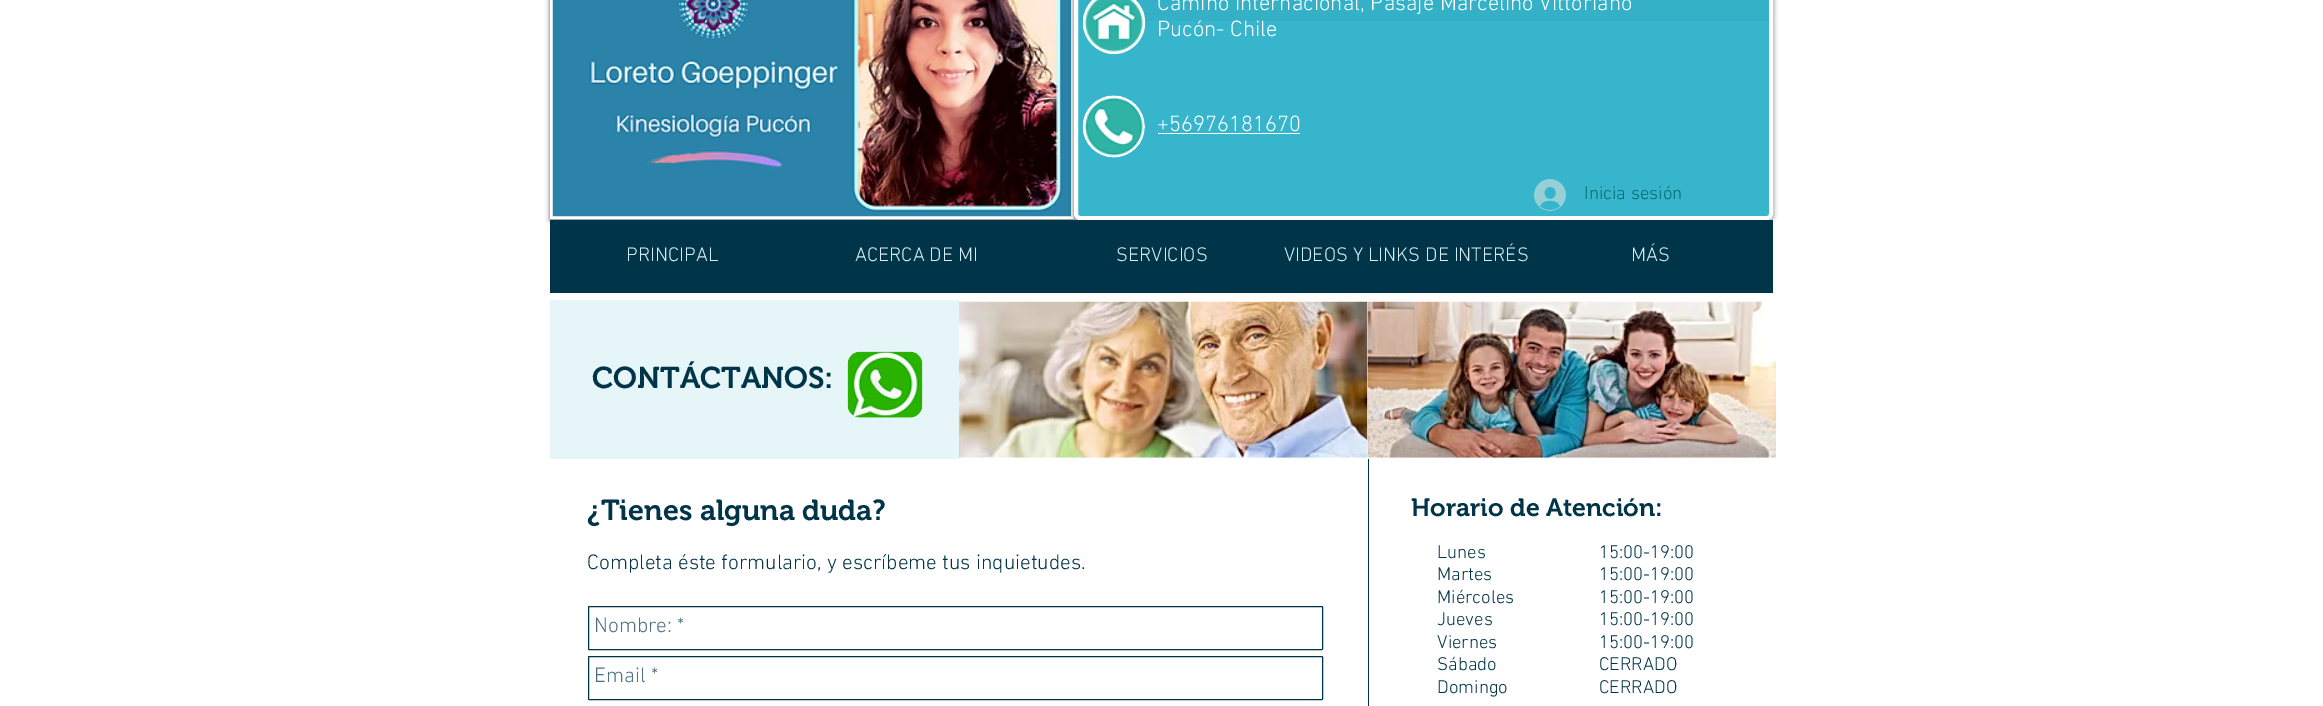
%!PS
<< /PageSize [2323 706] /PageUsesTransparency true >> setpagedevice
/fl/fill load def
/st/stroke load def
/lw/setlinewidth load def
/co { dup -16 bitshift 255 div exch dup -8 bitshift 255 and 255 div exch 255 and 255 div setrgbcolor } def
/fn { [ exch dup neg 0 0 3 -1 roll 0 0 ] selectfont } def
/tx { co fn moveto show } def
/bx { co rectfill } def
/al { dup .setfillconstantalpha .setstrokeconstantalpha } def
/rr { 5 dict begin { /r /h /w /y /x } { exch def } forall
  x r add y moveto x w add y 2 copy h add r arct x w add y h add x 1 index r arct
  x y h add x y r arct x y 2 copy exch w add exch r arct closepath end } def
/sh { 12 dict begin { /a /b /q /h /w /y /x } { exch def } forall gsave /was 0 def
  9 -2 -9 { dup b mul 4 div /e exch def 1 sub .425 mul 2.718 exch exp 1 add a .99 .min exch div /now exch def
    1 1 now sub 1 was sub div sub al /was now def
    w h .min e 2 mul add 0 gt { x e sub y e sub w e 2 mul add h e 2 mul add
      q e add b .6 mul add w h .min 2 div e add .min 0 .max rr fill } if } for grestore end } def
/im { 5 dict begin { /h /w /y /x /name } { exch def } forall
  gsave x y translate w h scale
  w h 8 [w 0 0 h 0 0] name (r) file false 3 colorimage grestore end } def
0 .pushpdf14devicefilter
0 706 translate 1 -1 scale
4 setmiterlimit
0 0 2323 706 16#FFFFFF bx
16#000000 co
550 -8 524 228 0 2.5 .6 sh
550 0 524 219 16#FFFFFF bx
(media/1.raw) 552 0 520 217 im
16#000000 co
1074 -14 699 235 6 2.5 .6 sh
16#36B5CD co
1074 -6 699 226 6 rr fl
1078 0 691 21 16#34B0C7 bx
16#FFFFFF co
4 lw
1076 -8 695 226 4 rr st
1083 -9 62 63 31 rr fl
(media/2.raw) 1084 0 59 52 im
(media/3.raw) 1082 95 63 63 im
1158 133 142 1 16#FFFFFF bx
(media/4.raw) 1534 179 32 32 im
550 220 1223 73 16#003449 bx
550 300 409 159 16#E6F5F7 bx
(media/5.raw) 847 351 76 67 im
(media/6.raw) 958 301 410 157 im
(media/7.raw) 1367 301 410 157 im
1368 459 1 247 16#003449 bx
1 lw
588.5 606.5 734 43 .5 rr st
588.5 656.5 734 43 .5 rr st
(Camino internacional, Pasaje Marcelino Vittoriano) 1157 10 /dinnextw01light-Light 22.5 16#FFFFFF tx
(Pucón- Chile) 1157 36 /dinnextw01light-Light 22.5 16#FFFFFF tx
(+56976181670) 1157 131 /dinnextw01light-Light 22.5 16#FFFFFF tx
(Inicia sesión) 1584 199 /dinnextw01light-Light 18.75 16#006C6D tx
(PRINCIPAL) 626 261 /dinnextw01light-Light 20 16#D5EEF1 tx
(ACERCA DE MI) 855 261 /dinnextw01light-Light 20 16#D5EEF1 tx
(SERVICIOS) 1116 261 /dinnextw01light-Light 20 16#D5EEF1 tx
(VIDEOS Y LINKS DE INTERÉS) 1284 261 /dinnextw01light-Light 20 16#D5EEF1 tx
(MÁS) 1631 261 /dinnextw01light-Light 20 16#D5EEF1 tx
(CONTÁCTANOS:) 592 388 /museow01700-SemiBold 30 16#003449 tx
(¿Tienes alguna duda?) 587 520 /museow01700-SemiBold 28.75 16#003449 tx
(Completa éste formulario, y escríbeme tus inquietudes.) 587 569 /dinnextw01light-Light 21.25 16#003449 tx
(Horario de Atención:) 1411 516 /museow01700-SemiBold 25 16#003449 tx
(Nombre: *) 594 632 /dinnextw01light-Light 21.25 16#4C7080 tx
(Email *) 594 682 /dinnextw01light-Light 21.25 16#4C7080 tx
(Lunes) 1437 558 /dinnextw01light-Light 18.75 16#003449 tx
(Martes) 1437 580 /dinnextw01light-Light 18.75 16#003449 tx
(Miércoles) 1437 603 /dinnextw01light-Light 18.75 16#003449 tx
(Jueves) 1437 625 /dinnextw01light-Light 18.75 16#003449 tx
(Viernes) 1437 648 /dinnextw01light-Light 18.75 16#003449 tx
(Sábado) 1437 670 /dinnextw01light-Light 18.75 16#003449 tx
(Domingo) 1437 693 /dinnextw01light-Light 18.75 16#003449 tx
(15:00-19:00) 1599 558 /dinnextw01light-Light 18.75 16#003449 tx
(15:00-19:00) 1599 580 /dinnextw01light-Light 18.75 16#003449 tx
(15:00-19:00) 1599 603 /dinnextw01light-Light 18.75 16#003449 tx
(15:00-19:00) 1599 625 /dinnextw01light-Light 18.75 16#003449 tx
(15:00-19:00) 1599 648 /dinnextw01light-Light 18.75 16#003449 tx
(CERRADO) 1599 670 /dinnextw01light-Light 18.75 16#003449 tx
(CERRADO) 1599 693 /dinnextw01light-Light 18.75 16#003449 tx
.poppdf14devicefilter showpage
